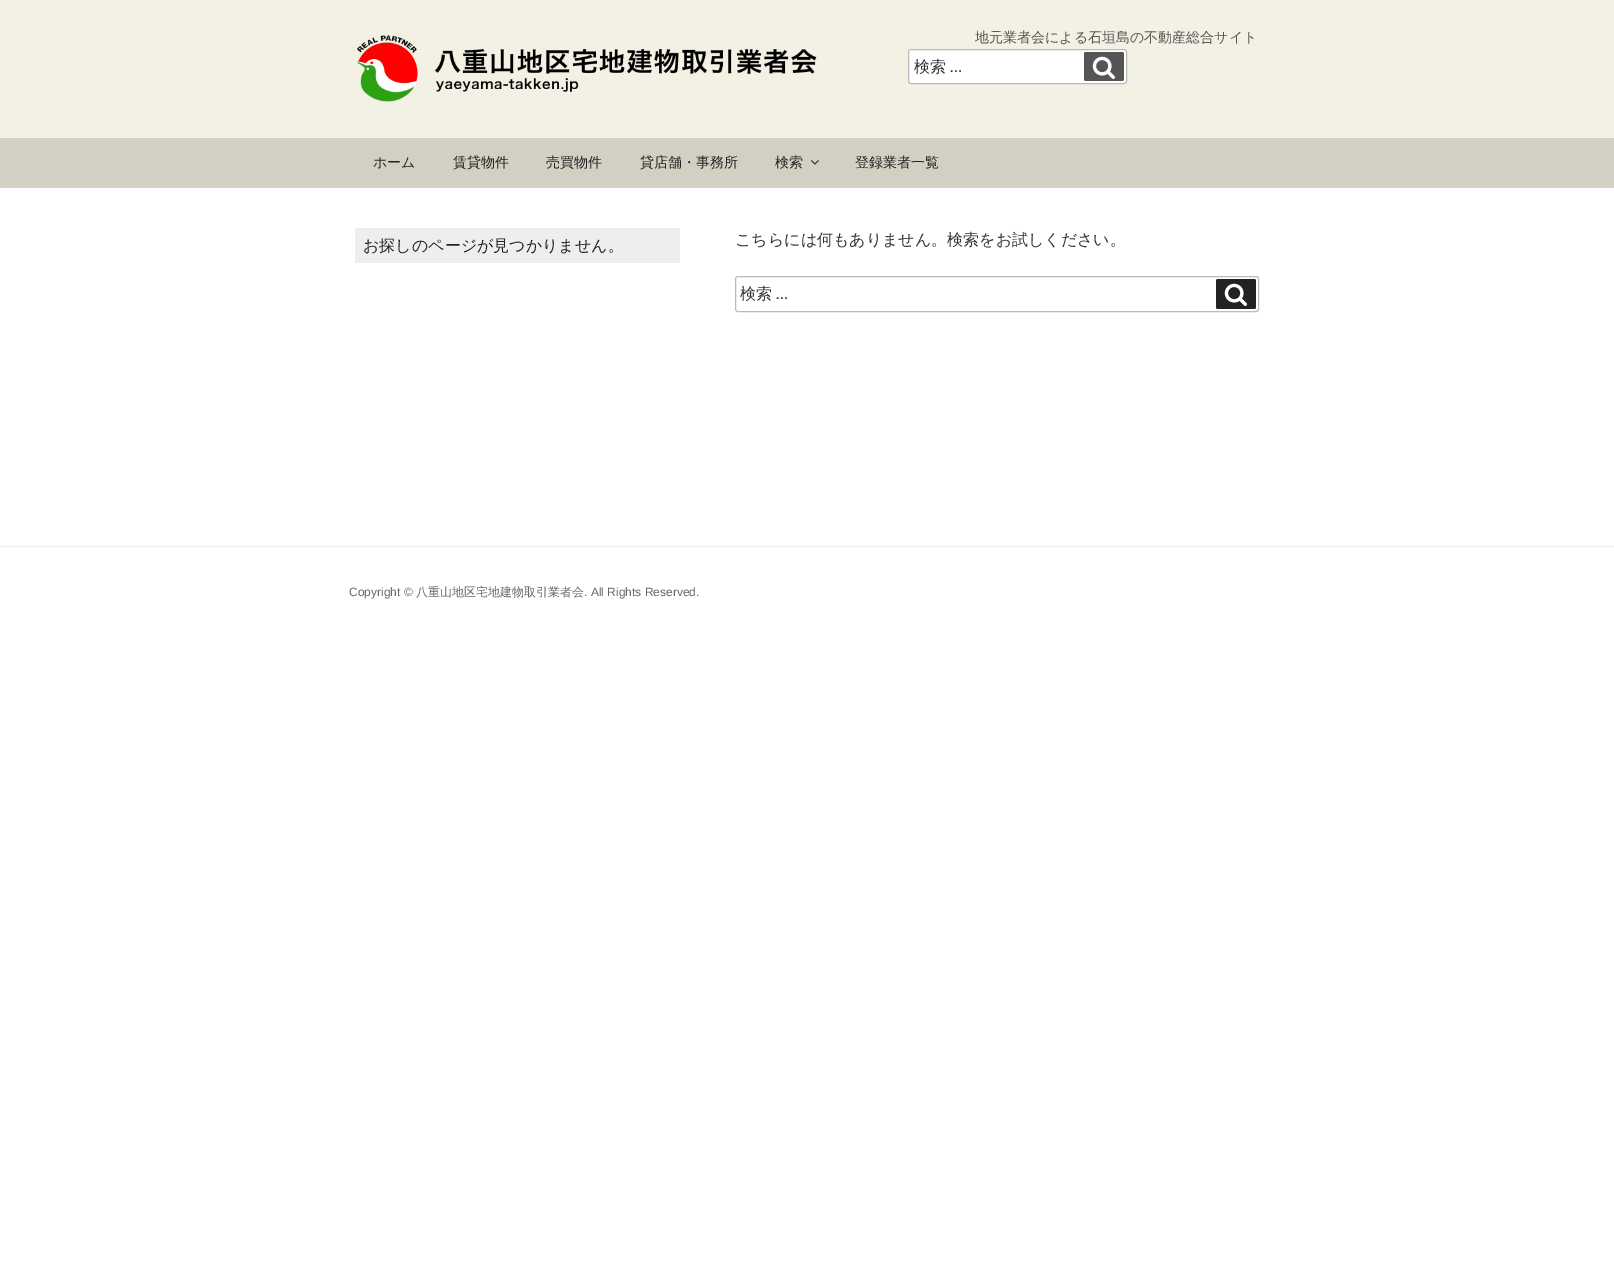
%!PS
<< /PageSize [1614 1286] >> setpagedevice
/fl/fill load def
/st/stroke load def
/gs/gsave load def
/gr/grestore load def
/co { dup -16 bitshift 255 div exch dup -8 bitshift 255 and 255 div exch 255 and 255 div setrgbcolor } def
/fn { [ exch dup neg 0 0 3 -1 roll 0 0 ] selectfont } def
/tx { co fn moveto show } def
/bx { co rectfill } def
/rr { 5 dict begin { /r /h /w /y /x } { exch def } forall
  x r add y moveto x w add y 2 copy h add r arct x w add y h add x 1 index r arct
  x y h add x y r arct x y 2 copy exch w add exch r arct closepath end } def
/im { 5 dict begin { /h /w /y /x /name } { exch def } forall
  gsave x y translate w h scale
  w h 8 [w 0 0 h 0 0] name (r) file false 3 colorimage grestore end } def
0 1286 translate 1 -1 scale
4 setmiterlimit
0 0 1614 1286 16#FFFFFF bx
0 0 1614 138 16#F3F0E4 bx
(media/1.raw) 356 35 461 67 im
16#FFFFFF co
908.5 49.5 218 34 2.5 rr gs fl gr
16#BBBBBB co
st
16#555555 co
1084 52 40 29 2 rr fl
(media/2.raw) 1092 56 23 23 im
0 138 1614 50 16#D3D0C3 bx
(media/3.raw) 811 160 8 5 im
355 228 325 35 16#EEEEEE bx
16#BBBBBB co
735.5 276.5 523 35 2.5 rr st
16#222222 co
1216 279 40 30 2 rr fl
(media/4.raw) 1224 283 23 23 im
0 546 1614 1 16#EEEEEE bx
(検索) 914 72 /WenQuanYiZenHei-Medium 16 16#333333 tx
(…) 950 72 /LibreFranklin-Regular 16 16#333333 tx
(地元業者会による石垣島の不動産総合サイト) 975 42 /WenQuanYiZenHei-Medium 14 16#555555 tx
(ホーム) 373 167 /WenQuanYiZenHei-Medium 14 16#222222 tx
(賃貸物件) 453 167 /WenQuanYiZenHei-Medium 14 16#222222 tx
(売買物件) 546 167 /WenQuanYiZenHei-Medium 14 16#222222 tx
(貸店舗・事務所) 640 167 /WenQuanYiZenHei-Medium 14 16#222222 tx
(検索) 775 167 /WenQuanYiZenHei-Medium 14 16#222222 tx
(登録業者一覧) 855 167 /WenQuanYiZenHei-Medium 14 16#222222 tx
(お探しのページが見つかりません。) 363 251 /WenQuanYiZenHei-Medium 16 16#222222 tx
(こちらには何もありません。検索をお試しください。) 735 245 /WenQuanYiZenHei-Medium 16 16#333333 tx
(検索) 740 299 /WenQuanYiZenHei-Medium 16 16#333333 tx
(…) 776 299 /LibreFranklin-Regular 16 16#333333 tx
(Copyright ©) 349 596 /LiberationSans-Regular 12 16#666666 tx
(八重山地区宅地建物取引業者会) 416 596 /WenQuanYiZenHei-Medium 12 16#666666 tx
(. All Rights Reserved.) 584 596 /LiberationSans-Regular 12 16#666666 tx
showpage
